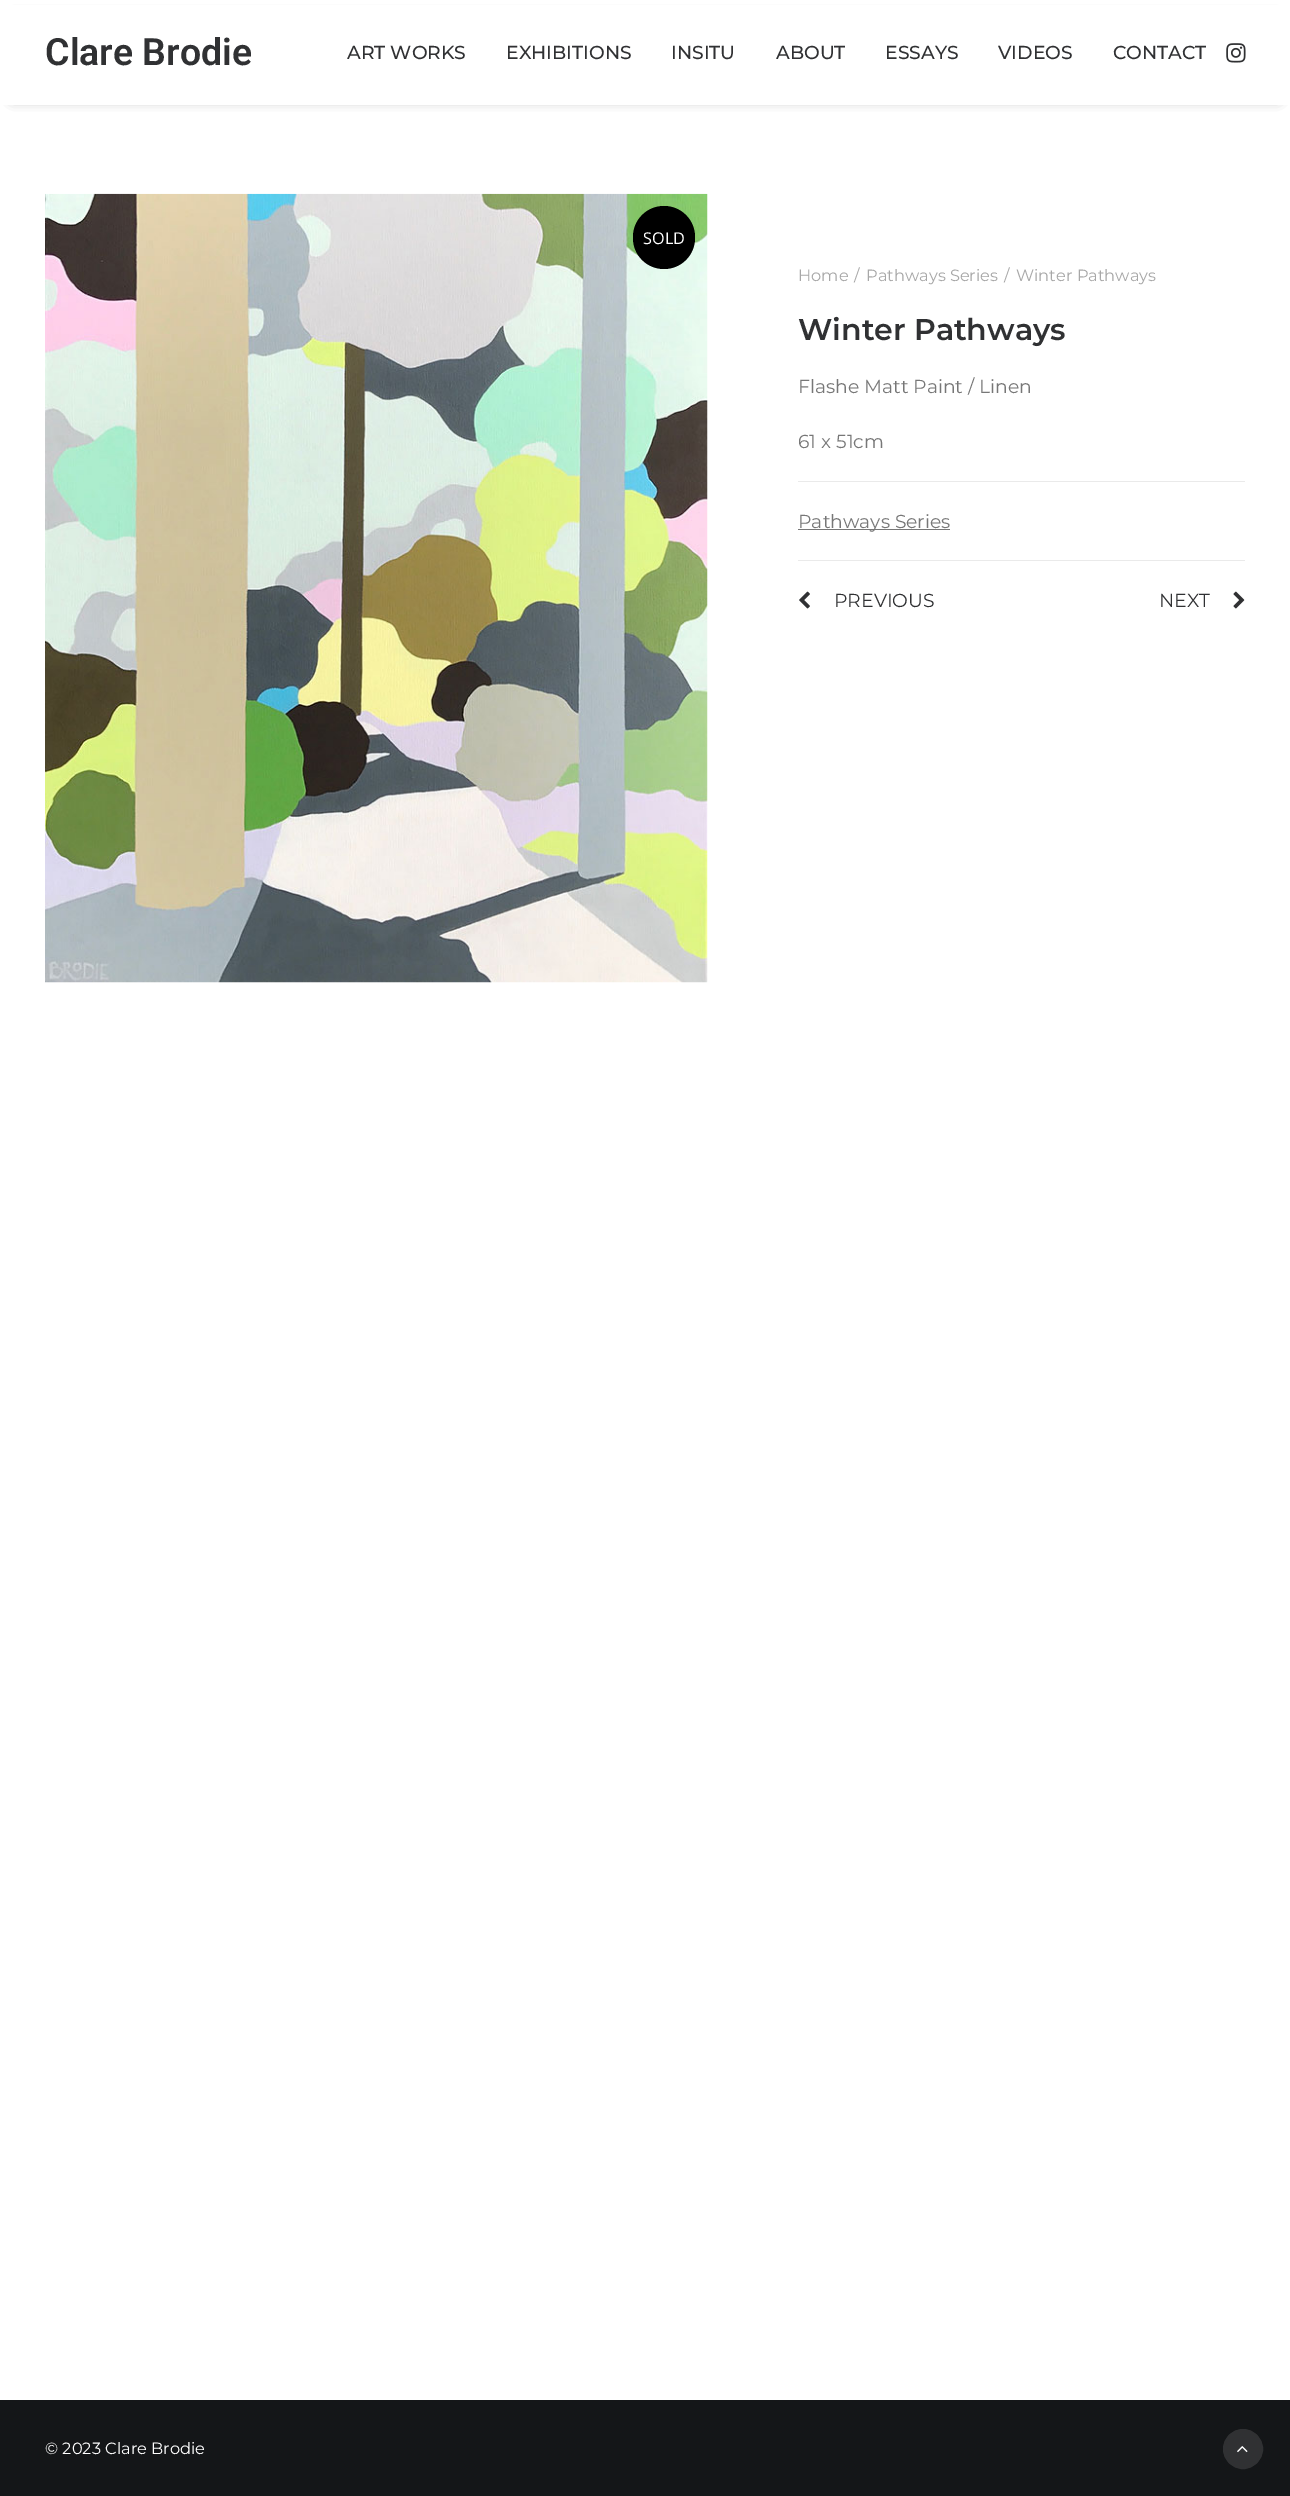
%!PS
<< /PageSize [1290 2496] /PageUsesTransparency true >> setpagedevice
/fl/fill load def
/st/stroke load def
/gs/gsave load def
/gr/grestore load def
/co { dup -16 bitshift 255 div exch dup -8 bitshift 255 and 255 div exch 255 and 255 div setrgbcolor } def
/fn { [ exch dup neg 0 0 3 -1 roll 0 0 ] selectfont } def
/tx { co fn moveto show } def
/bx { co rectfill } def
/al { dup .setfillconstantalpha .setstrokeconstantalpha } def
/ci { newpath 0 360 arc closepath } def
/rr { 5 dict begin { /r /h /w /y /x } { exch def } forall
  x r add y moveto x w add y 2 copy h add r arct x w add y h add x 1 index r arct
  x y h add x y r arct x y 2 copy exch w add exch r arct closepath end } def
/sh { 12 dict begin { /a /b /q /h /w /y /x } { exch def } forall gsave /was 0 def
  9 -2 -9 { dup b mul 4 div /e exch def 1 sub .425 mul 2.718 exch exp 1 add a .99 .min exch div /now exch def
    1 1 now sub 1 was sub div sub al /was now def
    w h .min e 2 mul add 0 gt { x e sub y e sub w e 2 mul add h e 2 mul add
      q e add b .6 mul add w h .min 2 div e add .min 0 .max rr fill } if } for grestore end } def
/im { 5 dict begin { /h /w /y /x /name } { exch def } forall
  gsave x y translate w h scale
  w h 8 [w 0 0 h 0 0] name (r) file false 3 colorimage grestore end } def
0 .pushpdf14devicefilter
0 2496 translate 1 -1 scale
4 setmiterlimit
0 0 1290 2496 16#FFFFFF bx
16#000000 co
13 18 1265 80 0 6 .6 sh
0 5 1290 100 16#FFFFFF bx
(media/1.raw) 1226 43 20 20 im
(media/2.raw) 45 193 663 790 im
16#000000 co
633 206 62 63 31 rr fl
798 481 447 1 16#EAEAEA bx
798 529 152 1 16#777777 bx
798 560 447 1 16#EAEAEA bx
(media/3.raw) 799 591 11 18 im
(media/4.raw) 1233 591 12 18 im
0 2400 1290 96 16#141618 bx
16#303133 co
1243 2449 19.5 ci gs fl gr
st
(media/5.raw) 1237 2446 11 7 im
(Clare Brodie) 45 65 /Roboto-SemiBold 37.5 16#303133 tx
(ART WORKS) 347 59 /Montserrat-Medium 18.75 16#303133 tx
(EXHIBITIONS) 506 59 /Montserrat-Medium 18.75 16#303133 tx
(INSITU) 671 59 /Montserrat-Medium 18.75 16#303133 tx
(ABOUT) 776 59 /Montserrat-Medium 18.75 16#303133 tx
(ESSAYS) 885 59 /Montserrat-Medium 18.75 16#303133 tx
(VIDEOS) 998 59 /Montserrat-Medium 18.75 16#303133 tx
(CONTACT) 1113 59 /Montserrat-Medium 18.75 16#303133 tx
(SOLD) 643 244 /OpenSans-Regular 16.25 16#FFFFFF tx
(Home) 798 281 /Montserrat-Regular 16.25 16#A7A7A7 tx
(/) 854 281 /Montserrat-Regular 16.25 16#A7A7A7 tx
(Pathways Series) 866 281 /Montserrat-Regular 16.25 16#A7A7A7 tx
(/) 1004 281 /Montserrat-Regular 16.25 16#A7A7A7 tx
(Winter Pathways) 1016 281 /Montserrat-Regular 16.25 16#A7A7A7 tx
(Winter Pathways) 798 340 /Montserrat-SemiBold 30 16#303133 tx
(Flashe Matt Paint / Linen) 798 393 /Montserrat-Regular 18.75 16#777777 tx
(61 x 51cm) 798 448 /Montserrat-Regular 18.75 16#777777 tx
(Pathways Series) 798 528 /Montserrat-Regular 18.75 16#777777 tx
(PREVIOUS) 834 607 /Montserrat-Regular 18.75 16#303133 tx
(NEXT) 1159 607 /Montserrat-Regular 18.75 16#303133 tx
(© 2023 Clare Brodie) 45 2454 /Montserrat-Regular 16.25 16#FFFFFF tx
.poppdf14devicefilter showpage
